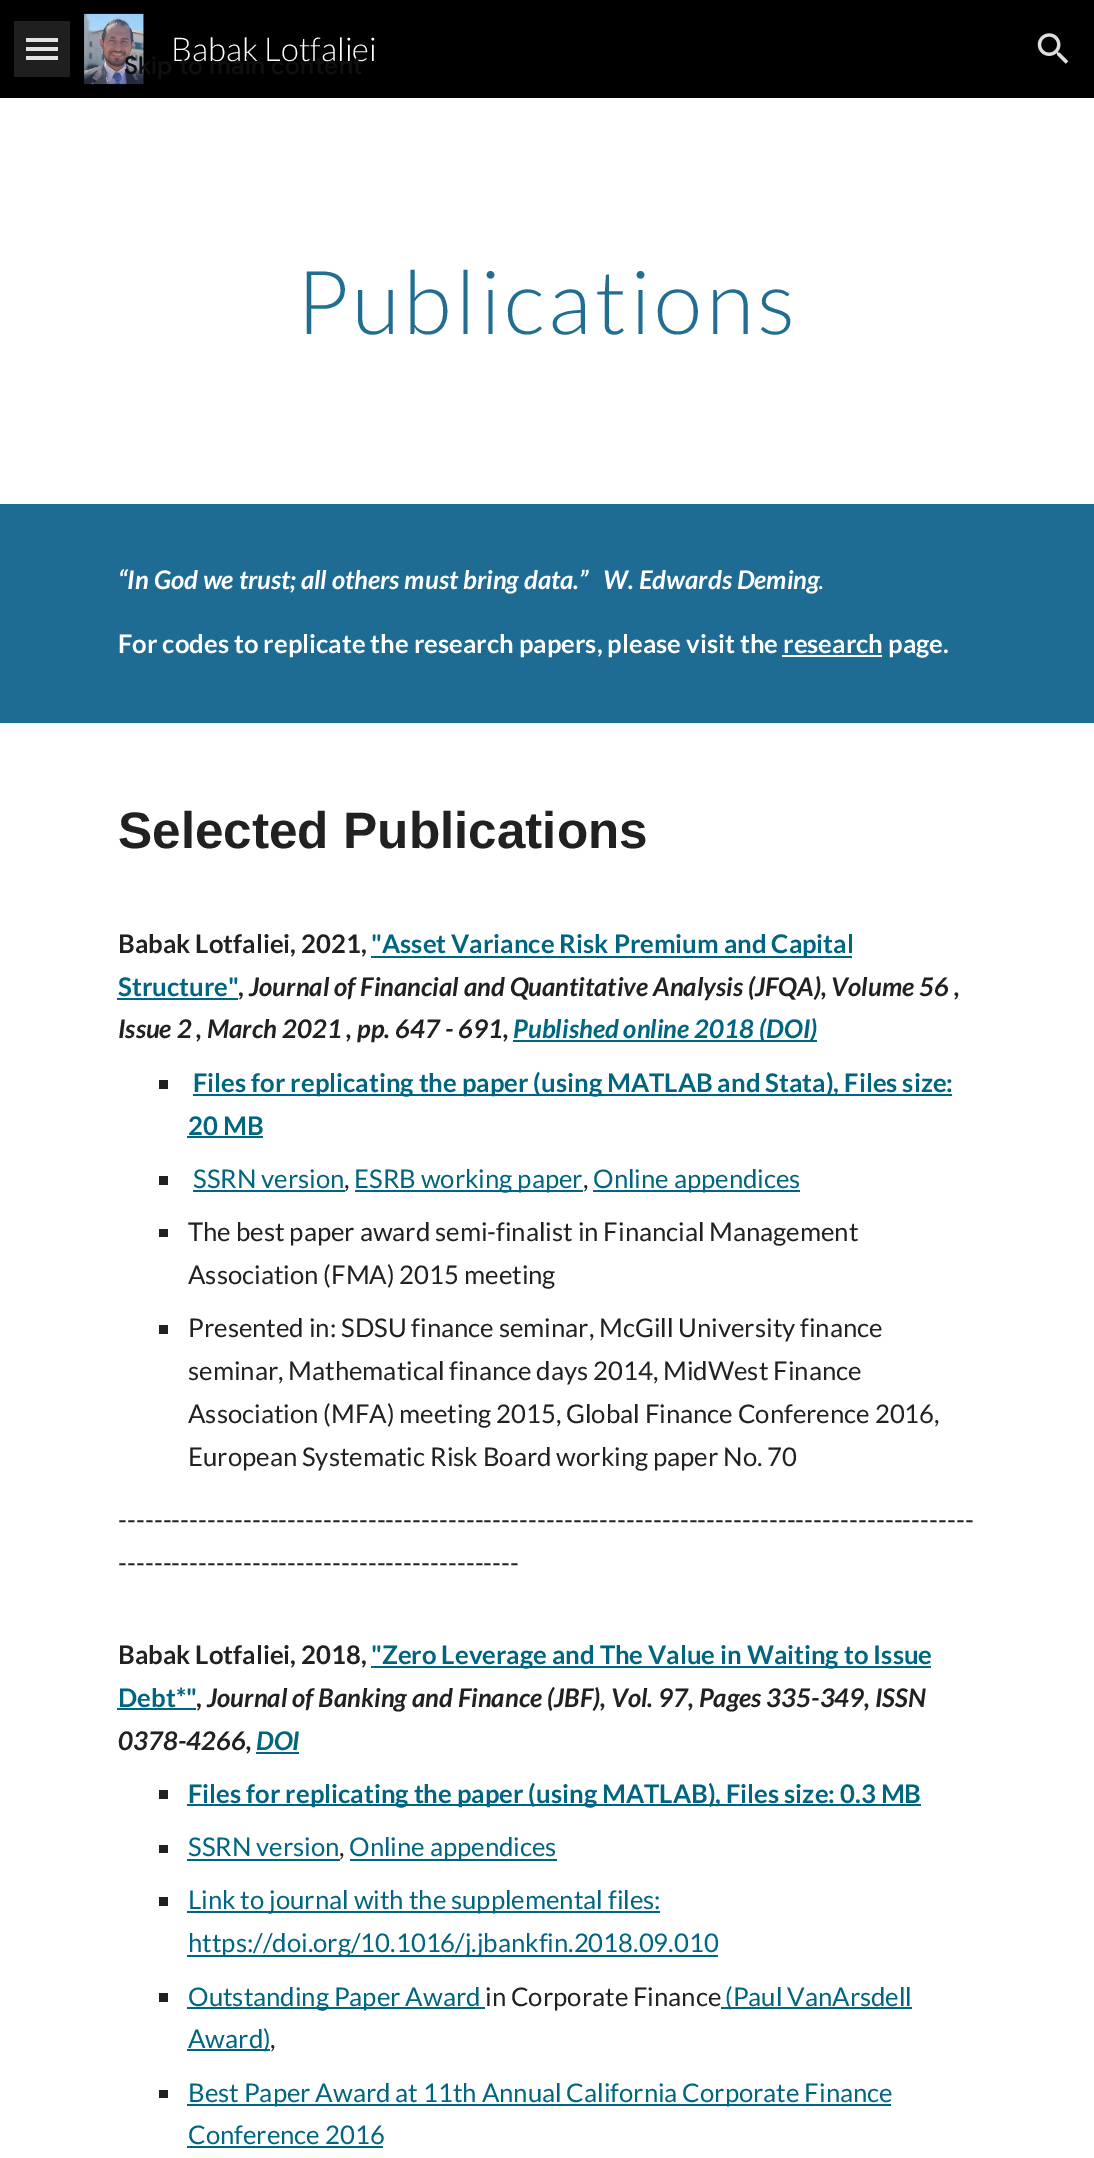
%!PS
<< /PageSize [1094 2158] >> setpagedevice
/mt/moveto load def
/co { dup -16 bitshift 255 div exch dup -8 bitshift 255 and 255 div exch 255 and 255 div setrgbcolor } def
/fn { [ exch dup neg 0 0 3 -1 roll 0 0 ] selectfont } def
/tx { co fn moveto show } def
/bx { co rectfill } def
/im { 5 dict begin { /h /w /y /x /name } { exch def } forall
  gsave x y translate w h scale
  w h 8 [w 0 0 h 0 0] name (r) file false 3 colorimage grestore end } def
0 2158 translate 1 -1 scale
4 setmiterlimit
0 0 1094 2158 16#FFFFFF bx
0 0 1094 98 16#000000 bx
14 21 56 56 16#1F1F1F bx
26 38 32 4 16#E3E3E3 bx
26 47 32 4 16#E3E3E3 bx
26 56 32 4 16#E3E3E3 bx
(media/1.raw) 84 13 60 72 im
(media/2.raw) 1037 33 32 31 im
0 504 1094 219 16#1E6C93 bx
782 655 100 2 16#FFFFFF bx
371 956 481 2 16#006580 bx
117 998 121 2 16#006580 bx
513 1040 304 2 16#006580 bx
159 1080 9 9 16#212121 bx
193 1094 759 2 16#006580 bx
187 1136 76 2 16#006580 bx
159 1176 9 9 16#212121 bx
193 1190 152 2 16#006580 bx
355 1190 228 2 16#006580 bx
593 1190 207 2 16#006580 bx
159 1229 9 8 16#212121 bx
159 1325 9 9 16#212121 bx
371 1666 560 2 16#006580 bx
117 1708 79 2 16#006580 bx
256 1752 43 2 16#006580 bx
159 1790 9 9 16#212121 bx
187 1804 734 2 16#006580 bx
159 1845 9 8 16#212121 bx
187 1859 153 2 16#006580 bx
350 1859 207 2 16#006580 bx
159 1897 9 9 16#212121 bx
187 1911 473 2 16#006580 bx
187 1955 531 2 16#006580 bx
159 1993 9 9 16#212121 bx
187 2007 298 2 16#006580 bx
721 2007 191 2 16#006580 bx
187 2049 83 2 16#006580 bx
159 2090 9 8 16#212121 bx
187 2104 704 2 16#006580 bx
187 2146 196 2 16#006580 bx
(Babak Lotfaliei) 171 61 /Lato-Light 32.75 16#FFFFFF tx
/Lato-Light 88.5 fn
16#226E93 co
296 334 mt 3.5 0 (Publications) ashow
(“In God we trust; all others must bring data.”   W. Edwards Deming) 118 589 /Lato-BoldItalic 25.7 16#FFFFFF tx
(.) 818 589 /Lato-Regular 25.7 16#FFFFFF tx
(For codes to replicate the research papers, please visit the research page.) 118 653 /Lato-Bold 25.7 16#FFFFFF tx
(Selected Publications) 118 848 /LiberationSans-Bold 51.25 16#212121 tx
(Babak Lotfaliei, 2021,) 118 953 /Lato-Bold 25.7 16#212121 tx
("Asset Variance Risk Premium and Capital) 371 953 /Lato-Bold 25.7 16#006580 tx
(Structure") 118 996 /Lato-Bold 25.7 16#006580 tx
(,) 238 996 /Lato-Bold 25.7 16#212121 tx
(Journal of Financial and Quantitative Analysis \(JFQA\), Volume 56 ,) 249 996 /Lato-BoldItalic 25.7 16#212121 tx
(Issue 2 , March 2021 , pp. 647 - 691,) 118 1038 /Lato-BoldItalic 25.7 16#212121 tx
(Published online 2018 \(DOI\)) 513 1038 /Lato-BoldItalic 25.7 16#006580 tx
(Files for replicating the paper \(using MATLAB and Stata\), Files size:) 193 1092 /Lato-Bold 25.7 16#006580 tx
(20 MB) 188 1135 /Lato-Bold 25.7 16#006580 tx
(SSRN version) 193 1188 /Lato-Regular 25.7 16#006580 tx
(,) 344 1188 /Lato-Regular 25.7 16#212121 tx
(ESRB working paper) 354 1188 /Lato-Regular 25.7 16#006580 tx
(,) 583 1188 /Lato-Regular 25.7 16#212121 tx
(Online appendices) 593 1188 /Lato-Regular 25.7 16#006580 tx
(The best paper award semi-finalist in Financial Management) 188 1241 /Lato-Regular 25.7 16#212121 tx
(Association \(FMA\) 2015 meeting) 188 1284 /Lato-Regular 25.7 16#212121 tx
(Presented in: SDSU finance seminar, McGill University finance) 188 1337 /Lato-Regular 25.7 16#212121 tx
(seminar, Mathematical finance days 2014, MidWest Finance) 188 1380 /Lato-Regular 25.7 16#212121 tx
(Association \(MFA\) meeting 2015, Global Finance Conference 2016,) 188 1423 /Lato-Regular 25.7 16#212121 tx
(European Systematic Risk Board working paper No. 70) 188 1466 /Lato-Regular 25.7 16#212121 tx
(------------------------------------------------------------------------------------------------) 118 1529 /Lato-Regular 25.7 16#212121 tx
(---------------------------------------------) 118 1572 /Lato-Regular 25.7 16#212121 tx
(Babak Lotfaliei, 2018,) 118 1664 /Lato-Bold 25.7 16#212121 tx
("Zero Leverage and The Value in Waiting to Issue) 371 1664 /Lato-Bold 25.7 16#006580 tx
(Debt*") 118 1707 /Lato-Bold 25.7 16#006580 tx
(,) 196 1707 /Lato-Bold 25.7 16#212121 tx
(Journal of Banking and Finance \(JBF\), Vol. 97, Pages 335-349, ISSN) 207 1707 /Lato-BoldItalic 25.7 16#212121 tx
(0378-4266,) 118 1750 /Lato-BoldItalic 25.7 16#212121 tx
(DOI) 256 1750 /Lato-BoldItalic 25.7 16#006580 tx
(Files for replicating the paper \(using MATLAB\), Files size: 0.3 MB) 188 1803 /Lato-Bold 25.7 16#006580 tx
(SSRN version) 188 1856 /Lato-Regular 25.7 16#006580 tx
(,) 339 1856 /Lato-Regular 25.7 16#212121 tx
(Online appendices) 349 1856 /Lato-Regular 25.7 16#006580 tx
(Link to journal with the supplemental files:) 188 1909 /Lato-Regular 25.7 16#006580 tx
(https://doi.org/10.1016/j.jbankfin.2018.09.010) 188 1952 /Lato-Regular 25.7 16#006580 tx
(Outstanding Paper Award) 188 2006 /Lato-Regular 25.7 16#006580 tx
(in Corporate Finance) 485 2006 /Lato-Regular 25.7 16#212121 tx
(\(Paul VanArsdell) 725 2006 /Lato-Regular 25.7 16#006580 tx
(Award\)) 188 2048 /Lato-Regular 25.7 16#006580 tx
(,) 270 2048 /Lato-Regular 25.7 16#212121 tx
(Best Paper Award at 11th Annual California Corporate Finance) 188 2102 /Lato-Regular 25.7 16#006580 tx
(Conference 2016) 188 2144 /Lato-Regular 25.7 16#006580 tx
/GoogleSans-Medium 24.5 fn
16#101012 co
124 74 mt .25 0 (Skip to main content) ashow
showpage
